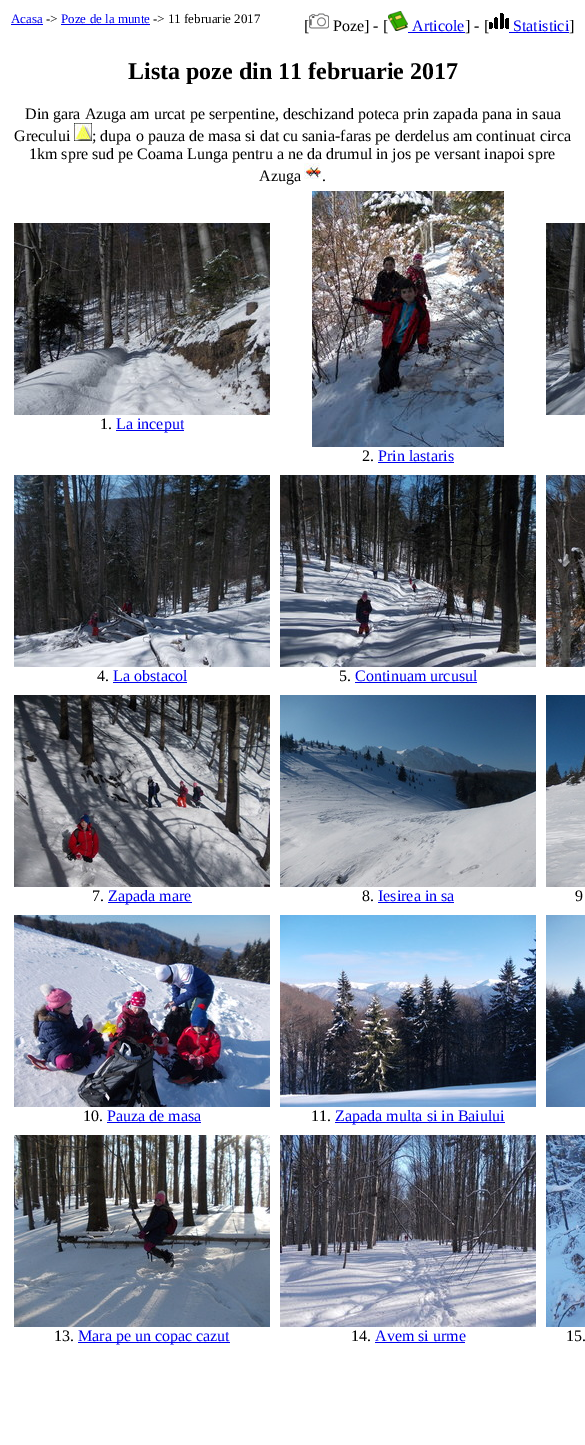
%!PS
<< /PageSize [585 1445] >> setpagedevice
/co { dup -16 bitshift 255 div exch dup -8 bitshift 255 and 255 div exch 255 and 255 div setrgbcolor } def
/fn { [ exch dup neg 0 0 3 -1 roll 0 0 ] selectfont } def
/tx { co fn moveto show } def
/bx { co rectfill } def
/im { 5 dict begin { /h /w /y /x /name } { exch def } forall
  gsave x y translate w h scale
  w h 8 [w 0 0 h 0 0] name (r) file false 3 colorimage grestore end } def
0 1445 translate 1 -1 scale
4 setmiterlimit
0 0 585 1445 16#FFFFFF bx
11 24 32 1 16#0000EE bx
61 24 89 1 16#0000EE bx
(media/1.raw) 309 13 20 16 im
(media/2.raw) 388 11 20 20 im
408 32 57 1 16#0000EE bx
(media/3.raw) 489 13 20 16 im
509 32 60 1 16#0000EE bx
(media/4.raw) 74 123 18 18 im
(media/5.raw) 304 163 18 16 im
(media/6.raw) 546 223 39 192 im
(media/7.raw) 14 223 256 192 im
116 430 68 1 16#0000EE bx
(media/8.raw) 312 191 192 256 im
378 462 76 1 16#0000EE bx
(media/9.raw) 546 475 39 192 im
(media/10.raw) 14 475 256 192 im
113 682 74 1 16#0000EE bx
(media/11.raw) 280 475 256 192 im
355 682 122 1 16#0000EE bx
(media/12.raw) 14 695 256 192 im
108 902 84 1 16#0000EE bx
(media/13.raw) 280 695 256 192 im
378 902 76 1 16#0000EE bx
(media/14.raw) 546 695 39 192 im
(media/15.raw) 546 915 39 192 im
(media/16.raw) 14 915 256 192 im
107 1122 94 1 16#0000EE bx
(media/17.raw) 280 915 256 192 im
335 1122 170 1 16#0000EE bx
(media/18.raw) 14 1135 256 192 im
78 1342 152 1 16#0000EE bx
(media/19.raw) 280 1135 256 192 im
375 1342 90 1 16#0000EE bx
(media/20.raw) 546 1135 39 192 im
(Acasa) 11 23 /LiberationSerif-Regular 13 16#0000EE tx
(->) 46 23 /LiberationSerif-Regular 13 16#000000 tx
(Poze de la munte) 61 23 /LiberationSerif-Regular 13 16#0000EE tx
(-> 11 februarie 2017) 153 23 /LiberationSerif-Regular 13 16#000000 tx
([) 304 31 /LiberationSerif-Regular 16 16#000000 tx
(Poze] - [) 333 31 /LiberationSerif-Regular 16 16#000000 tx
(Articole) 412 31 /LiberationSerif-Regular 16 16#0000EE tx
(] - [) 465 31 /LiberationSerif-Regular 16 16#000000 tx
(Statistici) 513 31 /LiberationSerif-Regular 16 16#0000EE tx
(]) 569 31 /LiberationSerif-Regular 16 16#000000 tx
(Lista poze din 11 februarie 2017) 128 79 /LiberationSerif-Bold 24 16#000000 tx
(Din gara Azuga am urcat pe serpentine, deschizand poteca prin zapada pana in saua) 25 119 /LiberationSerif-Regular 16 16#000000 tx
(Grecului) 14 141 /LiberationSerif-Regular 16 16#000000 tx
(; dupa o pauza de masa si dat cu sania-faras pe derdelus am continuat circa) 92 141 /LiberationSerif-Regular 16 16#000000 tx
(1km spre sud pe Coama Lunga pentru a ne da drumul in jos pe versant inapoi spre) 29 159 /LiberationSerif-Regular 16 16#000000 tx
(Azuga) 259 181 /LiberationSerif-Regular 16 16#000000 tx
(.) 322 181 /LiberationSerif-Regular 16 16#000000 tx
(1.) 100 429 /LiberationSerif-Regular 16 16#000000 tx
(La inceput) 116 429 /LiberationSerif-Regular 16 16#0000EE tx
(2.) 362 461 /LiberationSerif-Regular 16 16#000000 tx
(Prin lastaris) 378 461 /LiberationSerif-Regular 16 16#0000EE tx
(4.) 97 681 /LiberationSerif-Regular 16 16#000000 tx
(La obstacol) 113 681 /LiberationSerif-Regular 16 16#0000EE tx
(5.) 339 681 /LiberationSerif-Regular 16 16#000000 tx
(Continuam urcusul) 355 681 /LiberationSerif-Regular 16 16#0000EE tx
(7.) 92 901 /LiberationSerif-Regular 16 16#000000 tx
(Zapada mare) 108 901 /LiberationSerif-Regular 16 16#0000EE tx
(8.) 362 901 /LiberationSerif-Regular 16 16#000000 tx
(Iesirea in sa) 378 901 /LiberationSerif-Regular 16 16#0000EE tx
(9) 575 901 /LiberationSerif-Regular 16 16#000000 tx
(10.) 83 1121 /LiberationSerif-Regular 16 16#000000 tx
(Pauza de masa) 107 1121 /LiberationSerif-Regular 16 16#0000EE tx
(11.) 311 1121 /LiberationSerif-Regular 16 16#000000 tx
(Zapada multa si in Baiului) 335 1121 /LiberationSerif-Regular 16 16#0000EE tx
(13.) 54 1341 /LiberationSerif-Regular 16 16#000000 tx
(Mara pe un copac cazut) 78 1341 /LiberationSerif-Regular 16 16#0000EE tx
(14.) 351 1341 /LiberationSerif-Regular 16 16#000000 tx
(Avem si urme) 375 1341 /LiberationSerif-Regular 16 16#0000EE tx
(15.) 566 1341 /LiberationSerif-Regular 16 16#000000 tx
showpage
